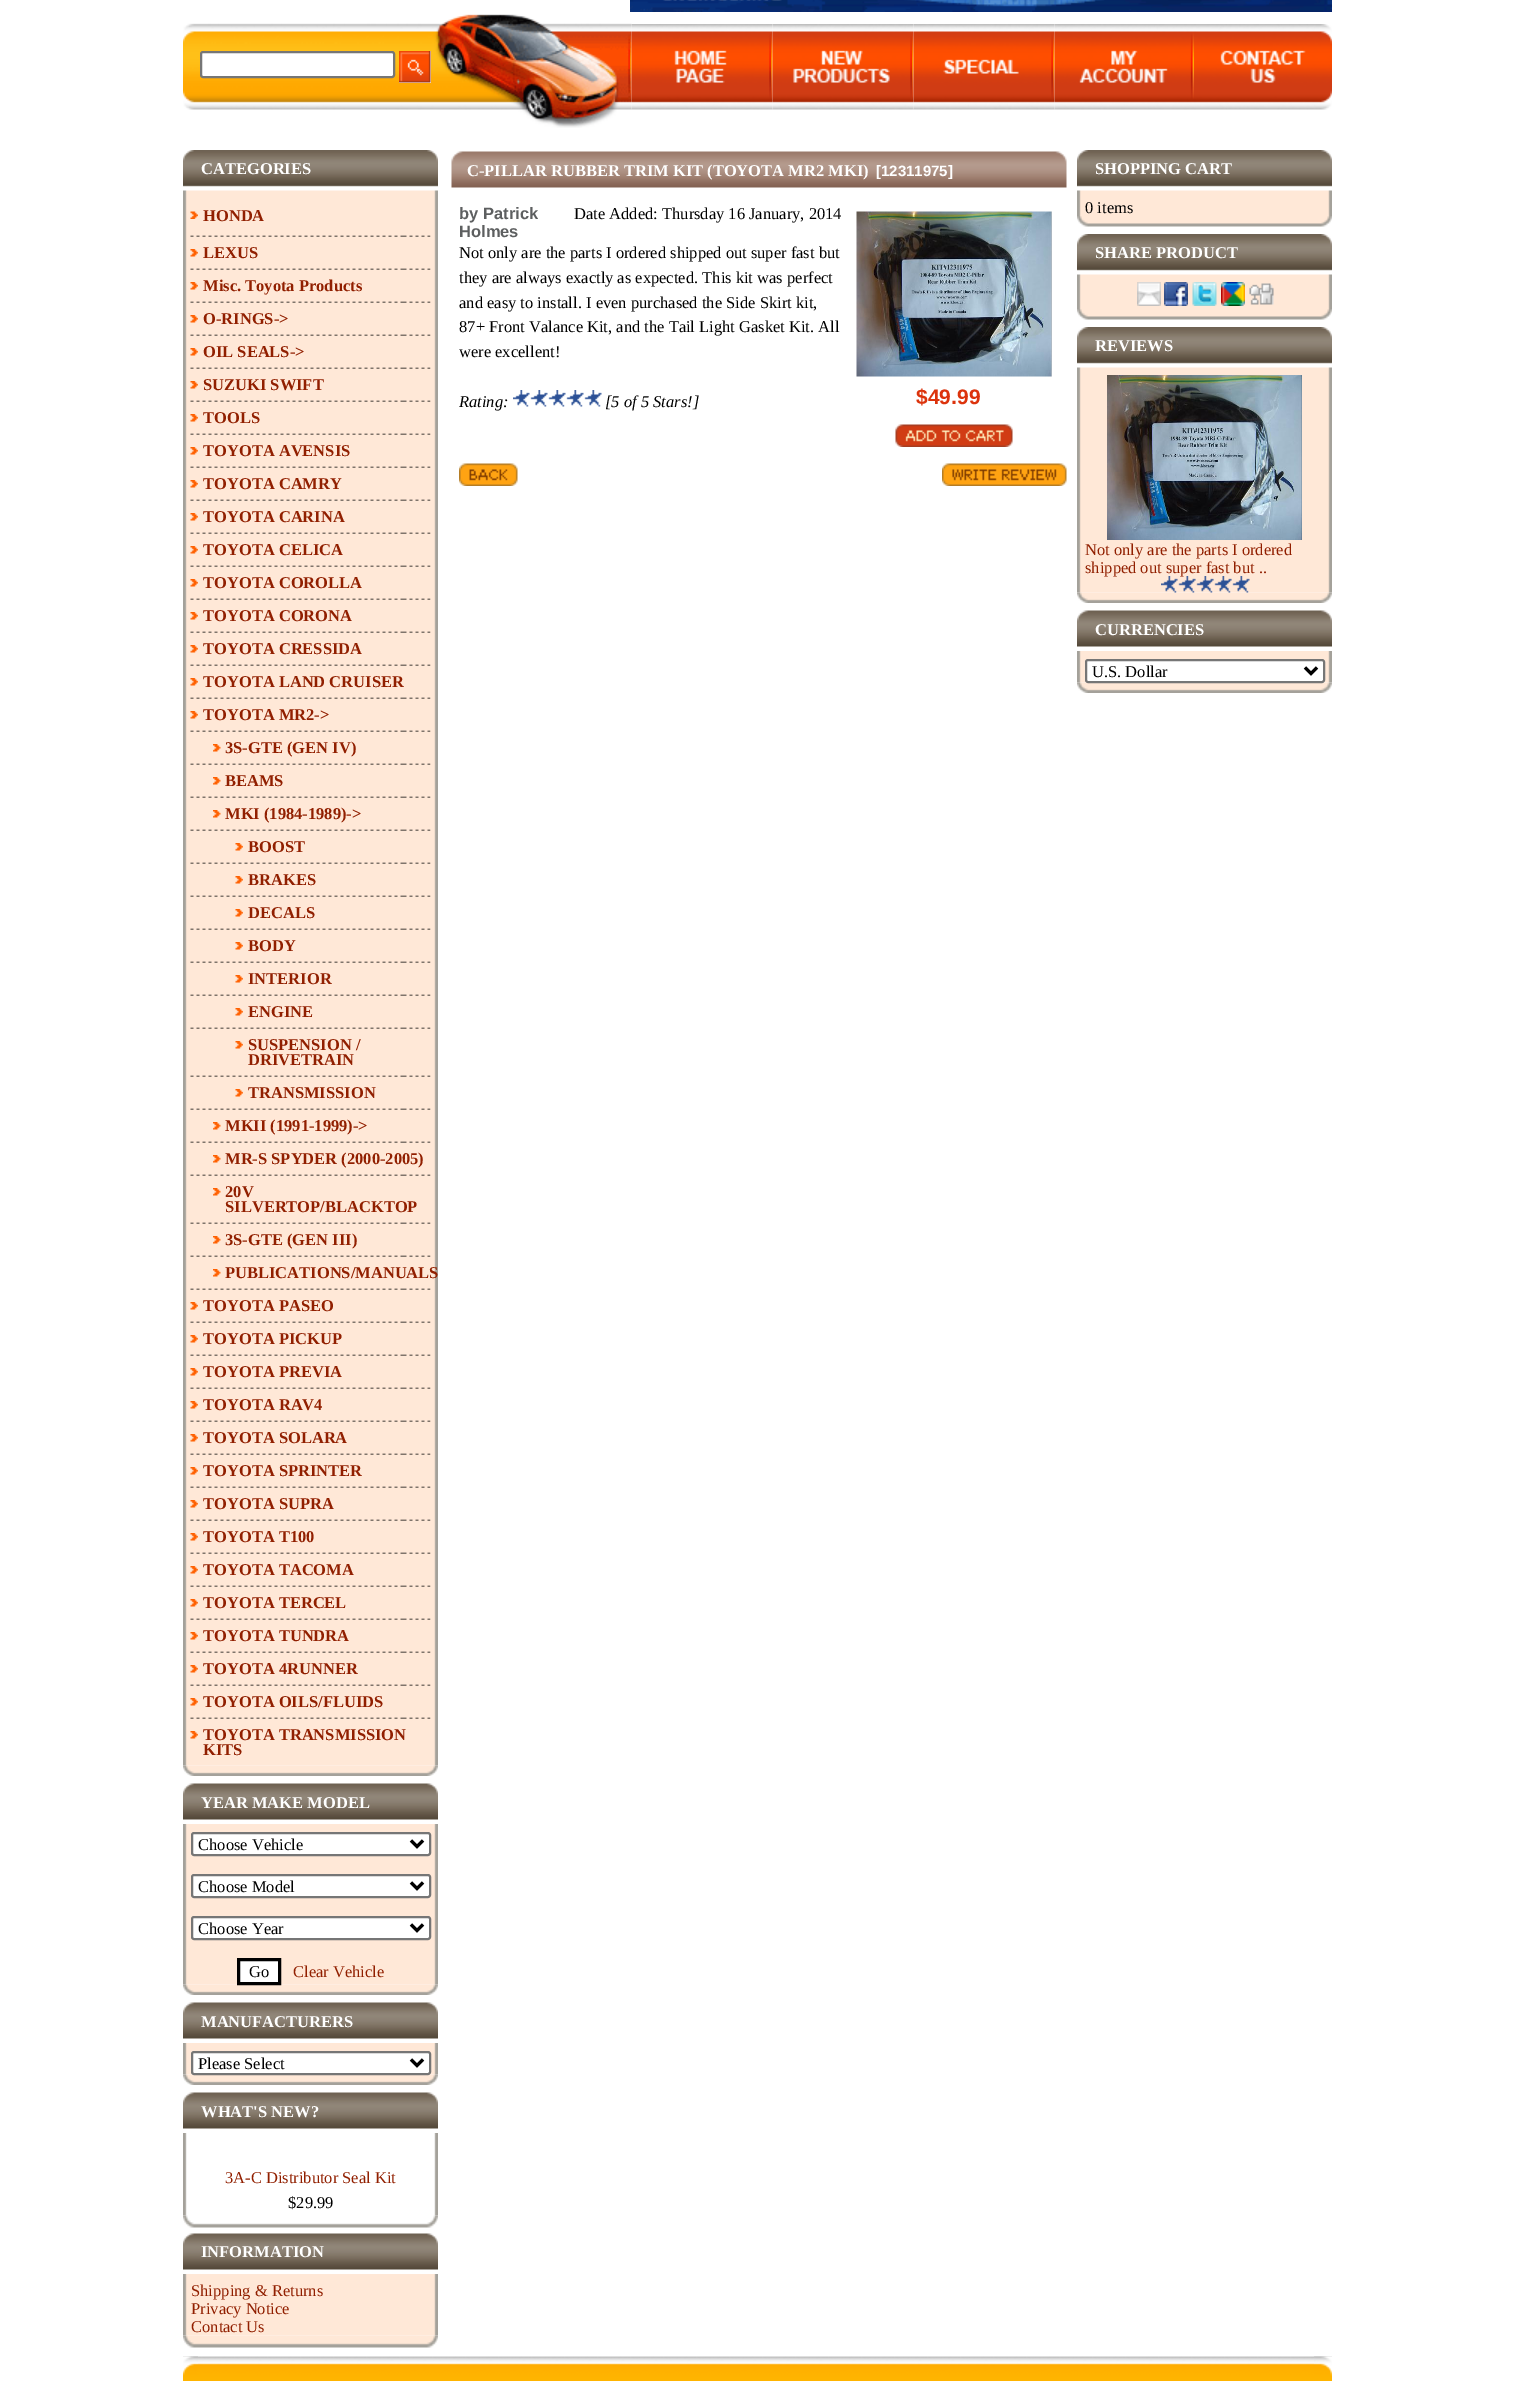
%!PS
<< /PageSize [1514 2381] >> setpagedevice
/mt/moveto load def
/li/lineto load def
/cp/closepath load def
/fl/fill load def
/st/stroke load def
/gs/gsave load def
/gr/grestore load def
/lw/setlinewidth load def
/co { dup -16 bitshift 255 div exch dup -8 bitshift 255 and 255 div exch 255 and 255 div setrgbcolor } def
/fn { [ exch dup neg 0 0 3 -1 roll 0 0 ] selectfont } def
/tx { co fn moveto show } def
/bx { co rectfill } def
/rr { 5 dict begin { /r /h /w /y /x } { exch def } forall
  x r add y moveto x w add y 2 copy h add r arct x w add y h add x 1 index r arct
  x y h add x y r arct x y 2 copy exch w add exch r arct closepath end } def
/im { 5 dict begin { /h /w /y /x /name } { exch def } forall
  gsave x y translate w h scale
  w h 8 [w 0 0 h 0 0] name (r) file false 3 colorimage grestore end } def
0 2381 translate 1 -1 scale
4 setmiterlimit
0 0 1514 2381 16#FFFFFF bx
(media/1.raw) 630 0 702 12 im
(media/2.raw) 183 14 449 114 im
201 52 193 25 2 rr gs fl gr
16#767676 co
2 lw
st
399 51 32 32 16#FFFFFF bx
(media/3.raw) 399 51 32 32 im
(media/4.raw) 631 24 142 86 im
(media/5.raw) 772 24 142 86 im
(media/6.raw) 913 24 142 86 im
(media/7.raw) 1054 24 140 86 im
(media/8.raw) 1194 24 138 86 im
(media/9.raw) 183 150 255 37 im
(media/10.raw) 183 190 255 1576 im
(media/11.raw) 190 211 8 8 im
(media/12.raw) 190 235 241 2 im
(media/13.raw) 190 249 8 8 im
(media/12.raw) 190 268 241 2 im
(media/13.raw) 190 282 8 8 im
(media/12.raw) 190 301 241 2 im
(media/13.raw) 190 315 8 8 im
(media/12.raw) 190 334 241 2 im
(media/13.raw) 190 348 8 8 im
(media/12.raw) 190 367 241 2 im
(media/13.raw) 190 381 8 8 im
(media/12.raw) 190 400 241 2 im
(media/13.raw) 190 414 8 8 im
(media/12.raw) 190 433 241 2 im
(media/13.raw) 190 447 8 8 im
(media/12.raw) 190 466 241 2 im
(media/13.raw) 190 480 8 8 im
(media/12.raw) 190 499 241 2 im
(media/13.raw) 190 513 8 8 im
(media/12.raw) 190 532 241 2 im
(media/13.raw) 190 546 8 8 im
(media/12.raw) 190 565 241 2 im
(media/13.raw) 190 579 8 8 im
(media/12.raw) 190 598 241 2 im
(media/13.raw) 190 612 8 8 im
(media/12.raw) 190 631 241 2 im
(media/13.raw) 190 645 8 8 im
(media/12.raw) 190 664 241 2 im
(media/13.raw) 190 678 8 8 im
(media/12.raw) 190 697 241 2 im
(media/13.raw) 190 711 8 8 im
(media/12.raw) 190 730 241 2 im
(media/14.raw) 213 744 8 8 im
(media/12.raw) 190 763 241 2 im
(media/14.raw) 213 777 8 8 im
(media/12.raw) 190 796 241 2 im
(media/14.raw) 213 810 8 8 im
(media/12.raw) 190 829 241 2 im
(media/13.raw) 235 843 8 8 im
(media/12.raw) 190 862 241 2 im
(media/13.raw) 235 876 8 8 im
(media/12.raw) 190 895 241 2 im
(media/13.raw) 235 909 8 8 im
(media/12.raw) 190 928 241 2 im
(media/13.raw) 235 942 8 8 im
(media/12.raw) 190 961 241 2 im
(media/13.raw) 235 975 8 8 im
(media/12.raw) 190 994 241 2 im
(media/13.raw) 235 1008 8 8 im
(media/12.raw) 190 1027 241 2 im
(media/13.raw) 235 1041 8 8 im
(media/12.raw) 190 1075 241 2 im
(media/13.raw) 235 1089 8 8 im
(media/12.raw) 190 1108 241 2 im
(media/14.raw) 213 1122 8 8 im
(media/12.raw) 190 1141 241 2 im
(media/14.raw) 213 1155 8 8 im
(media/12.raw) 190 1174 241 2 im
(media/14.raw) 213 1188 8 8 im
(media/12.raw) 190 1222 241 2 im
(media/14.raw) 213 1236 8 8 im
(media/12.raw) 190 1255 241 2 im
(media/14.raw) 213 1269 8 8 im
(media/12.raw) 190 1288 241 2 im
(media/13.raw) 190 1302 8 8 im
(media/12.raw) 190 1321 241 2 im
(media/13.raw) 190 1335 8 8 im
(media/12.raw) 190 1354 241 2 im
(media/13.raw) 190 1368 8 8 im
(media/12.raw) 190 1387 241 2 im
(media/13.raw) 190 1401 8 8 im
(media/12.raw) 190 1420 241 2 im
(media/13.raw) 190 1434 8 8 im
(media/12.raw) 190 1453 241 2 im
(media/13.raw) 190 1467 8 8 im
(media/12.raw) 190 1486 241 2 im
(media/13.raw) 190 1500 8 8 im
(media/12.raw) 190 1519 241 2 im
(media/13.raw) 190 1533 8 8 im
(media/12.raw) 190 1552 241 2 im
(media/13.raw) 190 1566 8 8 im
(media/12.raw) 190 1585 241 2 im
(media/13.raw) 190 1599 8 8 im
(media/12.raw) 190 1618 241 2 im
(media/13.raw) 190 1632 8 8 im
(media/12.raw) 190 1651 241 2 im
(media/13.raw) 190 1665 8 8 im
(media/12.raw) 190 1684 241 2 im
(media/13.raw) 190 1698 8 8 im
(media/12.raw) 190 1717 241 2 im
(media/13.raw) 190 1731 8 8 im
(media/15.raw) 183 1765 255 11 im
(media/16.raw) 183 1783 255 37 im
(media/17.raw) 183 1824 255 161 im
192 1833 238 22 2 rr gs fl gr
16#767676 co
st
16#000000 co
3 lw
411 1840.5 mt 417 1846.5 li 423 1840.5 li st
16#FFFFFF co
192 1875 238 22 2 rr gs fl gr
16#767676 co
2 lw
st
16#000000 co
3 lw
411 1882.5 mt 417 1888.5 li 423 1882.5 li st
16#FFFFFF co
192 1917 238 22 2 rr gs fl gr
16#767676 co
2 lw
st
16#000000 co
3 lw
411 1924.5 mt 417 1930.5 li 423 1924.5 li st
(media/15.raw) 183 1984 255 11 im
16#FFFFFF co
238.5 1959.5 mt 279.5 1959.5 li 279.5 1983.5 li 238.5 1983.5 li cp gs fl gr
16#000000 co
st
(media/16.raw) 183 2002 255 37 im
(media/18.raw) 183 2043 255 32 im
(media/15.raw) 183 2074 255 11 im
16#FFFFFF co
192 2052 238 22 2 rr gs fl gr
16#767676 co
2 lw
st
16#000000 co
3 lw
411 2059.5 mt 417 2065.5 li 423 2059.5 li st
(media/16.raw) 183 2092 255 37 im
(media/19.raw) 183 2133 255 83 im
(media/20.raw) 183 2215 255 13 im
(media/16.raw) 183 2233 255 37 im
(media/21.raw) 183 2274 255 62 im
(media/22.raw) 183 2335 255 13 im
(media/23.raw) 451 151 616 37 im
(media/24.raw) 513 390 89 17 im
(media/25.raw) 856 211 196 166 im
(media/26.raw) 895 424 118 23 im
(media/27.raw) 459 463 59 23 im
(media/28.raw) 942 463 125 23 im
(media/29.raw) 1077 150 255 37 im
(media/30.raw) 1077 190 255 26 im
(media/31.raw) 1077 216 255 11 im
(media/29.raw) 1077 234 255 37 im
(media/32.raw) 1077 274 255 35 im
(media/33.raw) 1137 282 24 24 im
(media/34.raw) 1164 282 24 24 im
(media/35.raw) 1192 282 25 24 im
(media/36.raw) 1221 282 24 24 im
(media/37.raw) 1249 283 25 22 im
(media/31.raw) 1077 309 255 11 im
(media/29.raw) 1077 327 255 37 im
(media/38.raw) 1077 367 255 226 im
(media/39.raw) 1107 375 195 165 im
(media/41.raw) 1077 592 255 11 im
(media/42.raw) 1077 610 255 37 im
(media/18.raw) 1077 651 255 32 im
(media/41.raw) 1077 682 255 11 im
16#FFFFFF co
1086 660 238 22 2 rr gs fl gr
16#767676 co
2 lw
st
16#000000 co
3 lw
1305 667.5 mt 1311 673.5 li 1317 667.5 li st
(media/43.raw) 183 2356 1149 25 im
(media/44.raw) 183 2356 15 20 im
(media/45.raw) 1314 2356 18 20 im
(CATEGORIES) 201 174 /LiberationSerif-Bold 16.5 16#FFFFFF tx
(HONDA) 203 221 /LiberationSerif-Bold 16.5 16#911F00 tx
(LEXUS) 203 258 /LiberationSerif-Bold 16.5 16#911F00 tx
(Misc. Toyota Products) 203 291 /LiberationSerif-Bold 16.5 16#911F00 tx
(O-RINGS->) 203 324 /LiberationSerif-Bold 16.5 16#911F00 tx
(OIL SEALS->) 203 357 /LiberationSerif-Bold 16.5 16#911F00 tx
(SUZUKI SWIFT) 203 390 /LiberationSerif-Bold 16.5 16#911F00 tx
(TOOLS) 203 423 /LiberationSerif-Bold 16.5 16#911F00 tx
(TOYOTA AVENSIS) 203 456 /LiberationSerif-Bold 16.5 16#911F00 tx
(TOYOTA CAMRY) 203 489 /LiberationSerif-Bold 16.5 16#911F00 tx
(TOYOTA CARINA) 203 522 /LiberationSerif-Bold 16.5 16#911F00 tx
(TOYOTA CELICA) 203 555 /LiberationSerif-Bold 16.5 16#911F00 tx
(TOYOTA COROLLA) 203 588 /LiberationSerif-Bold 16.5 16#911F00 tx
(TOYOTA CORONA) 203 621 /LiberationSerif-Bold 16.5 16#911F00 tx
(TOYOTA CRESSIDA) 203 654 /LiberationSerif-Bold 16.5 16#911F00 tx
(TOYOTA LAND CRUISER) 203 687 /LiberationSerif-Bold 16.5 16#911F00 tx
(TOYOTA MR2->) 203 720 /LiberationSerif-Bold 16.5 16#911F00 tx
(3S-GTE \(GEN IV\)) 225 753 /LiberationSerif-Bold 16.5 16#911F00 tx
(BEAMS) 225 786 /LiberationSerif-Bold 16.5 16#911F00 tx
(MKI \(1984-1989\)->) 225 819 /LiberationSerif-Bold 16.5 16#911F00 tx
(BOOST) 248 852 /LiberationSerif-Bold 16.5 16#911F00 tx
(BRAKES) 248 885 /LiberationSerif-Bold 16.5 16#911F00 tx
(DECALS) 248 918 /LiberationSerif-Bold 16.5 16#911F00 tx
(BODY) 248 951 /LiberationSerif-Bold 16.5 16#911F00 tx
(INTERIOR) 248 984 /LiberationSerif-Bold 16.5 16#911F00 tx
(ENGINE) 248 1017 /LiberationSerif-Bold 16.5 16#911F00 tx
(SUSPENSION /) 248 1050 /LiberationSerif-Bold 16.5 16#911F00 tx
(DRIVETRAIN) 248 1065 /LiberationSerif-Bold 16.5 16#911F00 tx
(TRANSMISSION) 248 1098 /LiberationSerif-Bold 16.5 16#911F00 tx
(MKII \(1991-1999\)->) 225 1131 /LiberationSerif-Bold 16.5 16#911F00 tx
(MR-S SPYDER \(2000-2005\)) 225 1164 /LiberationSerif-Bold 16.5 16#911F00 tx
(20V) 225 1197 /LiberationSerif-Bold 16.5 16#911F00 tx
(SILVERTOP/BLACKTOP) 225 1212 /LiberationSerif-Bold 16.5 16#911F00 tx
(3S-GTE \(GEN III\)) 225 1245 /LiberationSerif-Bold 16.5 16#911F00 tx
(PUBLICATIONS/MANUALS) 225 1278 /LiberationSerif-Bold 16.5 16#911F00 tx
(TOYOTA PASEO) 203 1311 /LiberationSerif-Bold 16.5 16#911F00 tx
(TOYOTA PICKUP) 203 1344 /LiberationSerif-Bold 16.5 16#911F00 tx
(TOYOTA PREVIA) 203 1377 /LiberationSerif-Bold 16.5 16#911F00 tx
(TOYOTA RAV4) 203 1410 /LiberationSerif-Bold 16.5 16#911F00 tx
(TOYOTA SOLARA) 203 1443 /LiberationSerif-Bold 16.5 16#911F00 tx
(TOYOTA SPRINTER) 203 1476 /LiberationSerif-Bold 16.5 16#911F00 tx
(TOYOTA SUPRA) 203 1509 /LiberationSerif-Bold 16.5 16#911F00 tx
(TOYOTA T100) 203 1542 /LiberationSerif-Bold 16.5 16#911F00 tx
(TOYOTA TACOMA) 203 1575 /LiberationSerif-Bold 16.5 16#911F00 tx
(TOYOTA TERCEL) 203 1608 /LiberationSerif-Bold 16.5 16#911F00 tx
(TOYOTA TUNDRA) 203 1641 /LiberationSerif-Bold 16.5 16#911F00 tx
(TOYOTA 4RUNNER) 203 1674 /LiberationSerif-Bold 16.5 16#911F00 tx
(TOYOTA OILS/FLUIDS) 203 1707 /LiberationSerif-Bold 16.5 16#911F00 tx
(TOYOTA TRANSMISSION) 203 1740 /LiberationSerif-Bold 16.5 16#911F00 tx
(KITS) 203 1755 /LiberationSerif-Bold 16.5 16#911F00 tx
(YEAR MAKE MODEL) 201 1808 /LiberationSerif-Bold 16.5 16#FFFFFF tx
(Choose Vehicle) 198 1850 /LiberationSerif-Regular 16.5 16#000000 tx
(Choose Model) 198 1892 /LiberationSerif-Regular 16.5 16#000000 tx
(Choose Year) 198 1934 /LiberationSerif-Regular 16.5 16#000000 tx
(Go) 249 1977 /LiberationSerif-Regular 16.5 16#000000 tx
(Clear Vehicle) 293 1977 /LiberationSerif-Regular 16.5 16#911F00 tx
(MANUFACTURERS) 201 2027 /LiberationSerif-Bold 16.5 16#FFFFFF tx
(Please Select) 198 2069 /LiberationSerif-Regular 16.5 16#000000 tx
(WHAT'S NEW?) 201 2117 /LiberationSerif-Bold 16.5 16#FFFFFF tx
(3A-C Distributor Seal Kit) 225 2183 /LiberationSerif-Regular 16.5 16#911F00 tx
($29.99) 288 2208 /LiberationSerif-Regular 16.5 16#000000 tx
(INFORMATION) 201 2257 /LiberationSerif-Bold 16.5 16#FFFFFF tx
(Shipping & Returns) 191 2296 /LiberationSerif-Regular 16.5 16#911F00 tx
(Privacy Notice) 191 2314 /LiberationSerif-Regular 16.5 16#911F00 tx
(Contact Us) 191 2332 /LiberationSerif-Regular 16.5 16#911F00 tx
(C-PILLAR RUBBER TRIM KIT \(TOYOTA MR2 MKI\)) 467 176 /LiberationSerif-Bold 16.5 16#FFFFFF tx
([12311975]) 876 176 /LiberationSans-Bold 15 16#FFFFFF tx
(by Patrick) 459 219 /LiberationSans-Bold 16.5 16#5D5F60 tx
(Holmes) 459 237 /LiberationSans-Bold 16.5 16#5D5F60 tx
(Date Added: Thursday 16 January, 2014) 574 219 /LiberationSerif-Regular 16.5 16#000000 tx
(Not only are the parts I ordered shipped out super fast but) 459 258 /LiberationSerif-Regular 16.5 16#000000 tx
(they are always exactly as expected. This kit was perfect) 459 283 /LiberationSerif-Regular 16.5 16#000000 tx
(and easy to install. I even purchased the Side Skirt kit,) 459 308 /LiberationSerif-Regular 16.5 16#000000 tx
(87+ Front Valance Kit, and the Tail Light Gasket Kit. All) 459 332 /LiberationSerif-Regular 16.5 16#000000 tx
(were excellent!) 459 357 /LiberationSerif-Regular 16.5 16#000000 tx
(Rating:) 459 407 /LiberationSerif-Italic 16.5 16#000000 tx
([5 of 5 Stars!]) 605 407 /LiberationSerif-Italic 16.5 16#000000 tx
($49.99) 916 404 /LiberationSans-Bold 21 16#DC330C tx
(SHOPPING CART) 1095 174 /LiberationSerif-Bold 16.5 16#FFFFFF tx
(0 items) 1085 213 /LiberationSerif-Regular 16.5 16#000000 tx
(SHARE PRODUCT) 1095 258 /LiberationSerif-Bold 16.5 16#FFFFFF tx
(REVIEWS) 1095 351 /LiberationSerif-Bold 16.5 16#FFFFFF tx
(Not only are the parts I ordered) 1085 555 /LiberationSerif-Regular 16.5 16#911F00 tx
(shipped out super fast but ..) 1085 573 /LiberationSerif-Regular 16.5 16#911F00 tx
(media/40.raw) 1161 576 89 17 im
(CURRENCIES) 1095 635 /LiberationSerif-Bold 16.5 16#FFFFFF tx
(U.S. Dollar) 1092 677 /LiberationSerif-Regular 16.5 16#000000 tx
showpage
